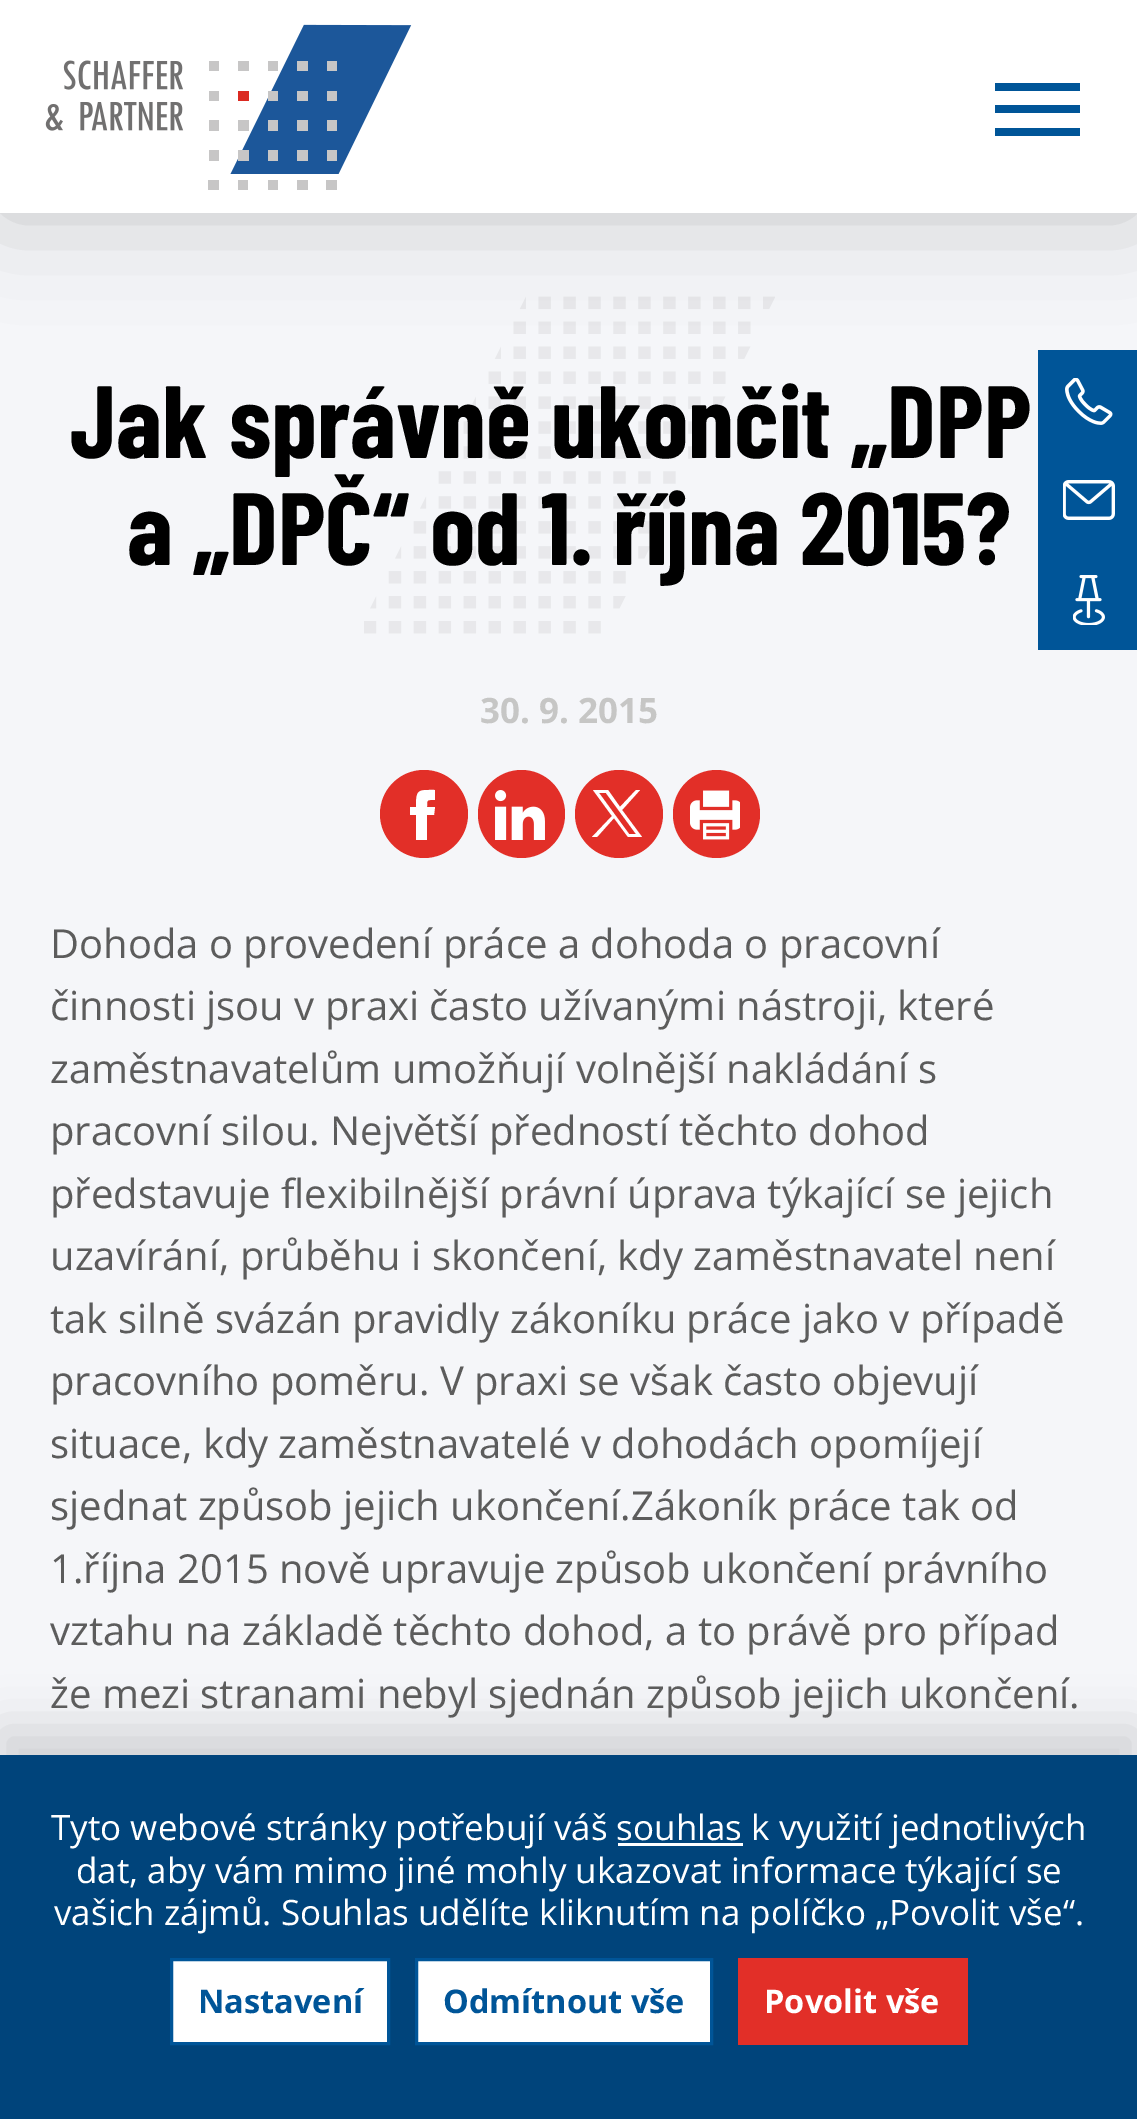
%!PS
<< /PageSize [1137 2119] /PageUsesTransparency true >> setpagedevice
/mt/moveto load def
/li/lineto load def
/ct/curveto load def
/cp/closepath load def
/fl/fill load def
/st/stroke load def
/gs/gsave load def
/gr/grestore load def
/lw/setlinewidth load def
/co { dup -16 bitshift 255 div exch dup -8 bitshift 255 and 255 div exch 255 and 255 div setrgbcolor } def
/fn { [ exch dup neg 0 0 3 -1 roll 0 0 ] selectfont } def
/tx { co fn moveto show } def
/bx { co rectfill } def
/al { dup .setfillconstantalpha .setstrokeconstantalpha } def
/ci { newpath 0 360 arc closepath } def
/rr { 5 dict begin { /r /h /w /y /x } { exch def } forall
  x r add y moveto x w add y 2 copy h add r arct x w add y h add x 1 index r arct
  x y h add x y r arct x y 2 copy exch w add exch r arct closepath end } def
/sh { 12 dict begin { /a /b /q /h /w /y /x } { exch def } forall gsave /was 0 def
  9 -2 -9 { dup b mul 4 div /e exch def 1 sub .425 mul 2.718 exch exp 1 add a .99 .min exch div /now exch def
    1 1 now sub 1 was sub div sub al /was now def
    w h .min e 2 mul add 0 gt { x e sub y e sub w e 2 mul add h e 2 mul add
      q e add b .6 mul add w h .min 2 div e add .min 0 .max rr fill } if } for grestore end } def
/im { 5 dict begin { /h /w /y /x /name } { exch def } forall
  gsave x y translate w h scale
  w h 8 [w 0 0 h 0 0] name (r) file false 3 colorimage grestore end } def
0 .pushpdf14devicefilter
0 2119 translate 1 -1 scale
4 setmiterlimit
0 0 1137 2119 16#F5F6F9 bx
(media/2.raw) 364 296 411 338 im
16#000000 co
0 0 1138 213 0 50 .2 sh
0 0 1137 213 16#FFFFFF bx
(media/1.raw) 45 24 367 166 im
995 83 85 8 16#005598 bx
995 105 85 8 16#005598 bx
995 128 85 8 16#005598 bx
1038 350 99 300 16#005598 bx
(media/3.raw) 1065 378 48 47 im
(media/4.raw) 1063 480 52 40 im
(media/5.raw) 1073 575 32 50 im
16#E22F28 co
424 814 44 ci fl
16#FFFFFF co
416 807 mt 410 807 li 410 815 li 416 815 li 416 840 li 427 840 li 427 815 li 434 815 li 435 807 li 427 807 li 427 799 427 800 435 800 ct 435 790 li 418 790 416 789 416 807 ct cp fl
16#E22F28 co
478 770 87 88 43.5 rr fl
(media/6.raw) 495 790 50 50 im
619 814 44 ci fl
16#FFFFFF co
593 790 mt 612 816 li 592 837 li 597 837 li 614 818 li 628 837 li 642 837 li 622 810 li 640 790 li 636 790 li 620 807 li 608 790 li cp 599 793 mt 606 793 li 636 834 li 629 834 li cp fl
16#E22F28 co
673 770 87 88 43.5 rr fl
(media/7.raw) 690 790 50 50 im
16#000000 co
0 1730 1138 365 0 25 .15 sh
0 1755 1137 364 16#00447B bx
618 1843 125 3 16#FFFFFF bx
171.5 1959.5 mt 388.5 1959.5 li 388.5 2043.5 li 171.5 2043.5 li cp gs fl gr
16#005598 co
3 lw
st
16#FFFFFF co
416.5 1959.5 mt 711.5 1959.5 li 711.5 2043.5 li 416.5 2043.5 li cp gs fl gr
16#005598 co
st
738 1958 230 87 16#E22F28 bx
(Jak správně ukončit „DPP) 70 458 /BarlowCondensed-Bold 102.5 16#000000 tx
(a „DPČ“ od 1. října 2015?) 127 565 /BarlowCondensed-Bold 102.5 16#000000 tx
(30. 9. 2015) 480 723 /OpenSans-Bold 35 16#C6C6C5 tx
(Dohoda o provedení práce a dohoda o pracovní) 50 958 /OpenSans-Regular 40 16#5C5C5C tx
(činnosti jsou v praxi často užívanými nástroji, které) 50 1020 /OpenSans-Regular 40 16#5C5C5C tx
(zaměstnavatelům umožňují volnější nakládání s) 50 1083 /OpenSans-Regular 40 16#5C5C5C tx
(pracovní silou. Největší předností těchto dohod) 50 1145 /OpenSans-Regular 40 16#5C5C5C tx
(představuje flexibilnější právní úprava týkající se jejich) 50 1208 /OpenSans-Regular 40 16#5C5C5C tx
(uzavírání, průběhu i skončení, kdy zaměstnavatel není) 50 1270 /OpenSans-Regular 40 16#5C5C5C tx
(tak silně svázán pravidly zákoníku práce jako v případě) 50 1333 /OpenSans-Regular 40 16#5C5C5C tx
(pracovního poměru. V praxi se však často objevují) 50 1395 /OpenSans-Regular 40 16#5C5C5C tx
(situace, kdy zaměstnavatelé v dohodách opomíjejí) 50 1458 /OpenSans-Regular 40 16#5C5C5C tx
(sjednat způsob jejich ukončení.Zákoník práce tak od) 50 1520 /OpenSans-Regular 40 16#5C5C5C tx
(1.října 2015 nově upravuje způsob ukončení právního) 50 1583 /OpenSans-Regular 40 16#5C5C5C tx
(vztahu na základě těchto dohod, a to právě pro případ) 50 1645 /OpenSans-Regular 40 16#5C5C5C tx
(že mezi stranami nebyl sjednán způsob jejich ukončení.) 50 1708 /OpenSans-Regular 40 16#5C5C5C tx
(Tyto webové stránky potřebují váš souhlas k využití jednotlivých) 51 1840 /OpenSans-Regular 35 16#FFFFFF tx
(dat, aby vám mimo jiné mohly ukazovat informace týkající se) 76 1883 /OpenSans-Regular 35 16#FFFFFF tx
(vašich zájmů. Souhlas udělíte kliknutím na políčko „Povolit vše“.) 54 1925 /OpenSans-Regular 35 16#FFFFFF tx
(Nastavení) 198 2013 /OpenSans-Bold 32.5 16#005598 tx
(Odmítnout vše) 443 2013 /OpenSans-Bold 32.5 16#005598 tx
(Povolit vše) 764 2013 /OpenSans-Bold 32.5 16#FFFFFF tx
.poppdf14devicefilter showpage
